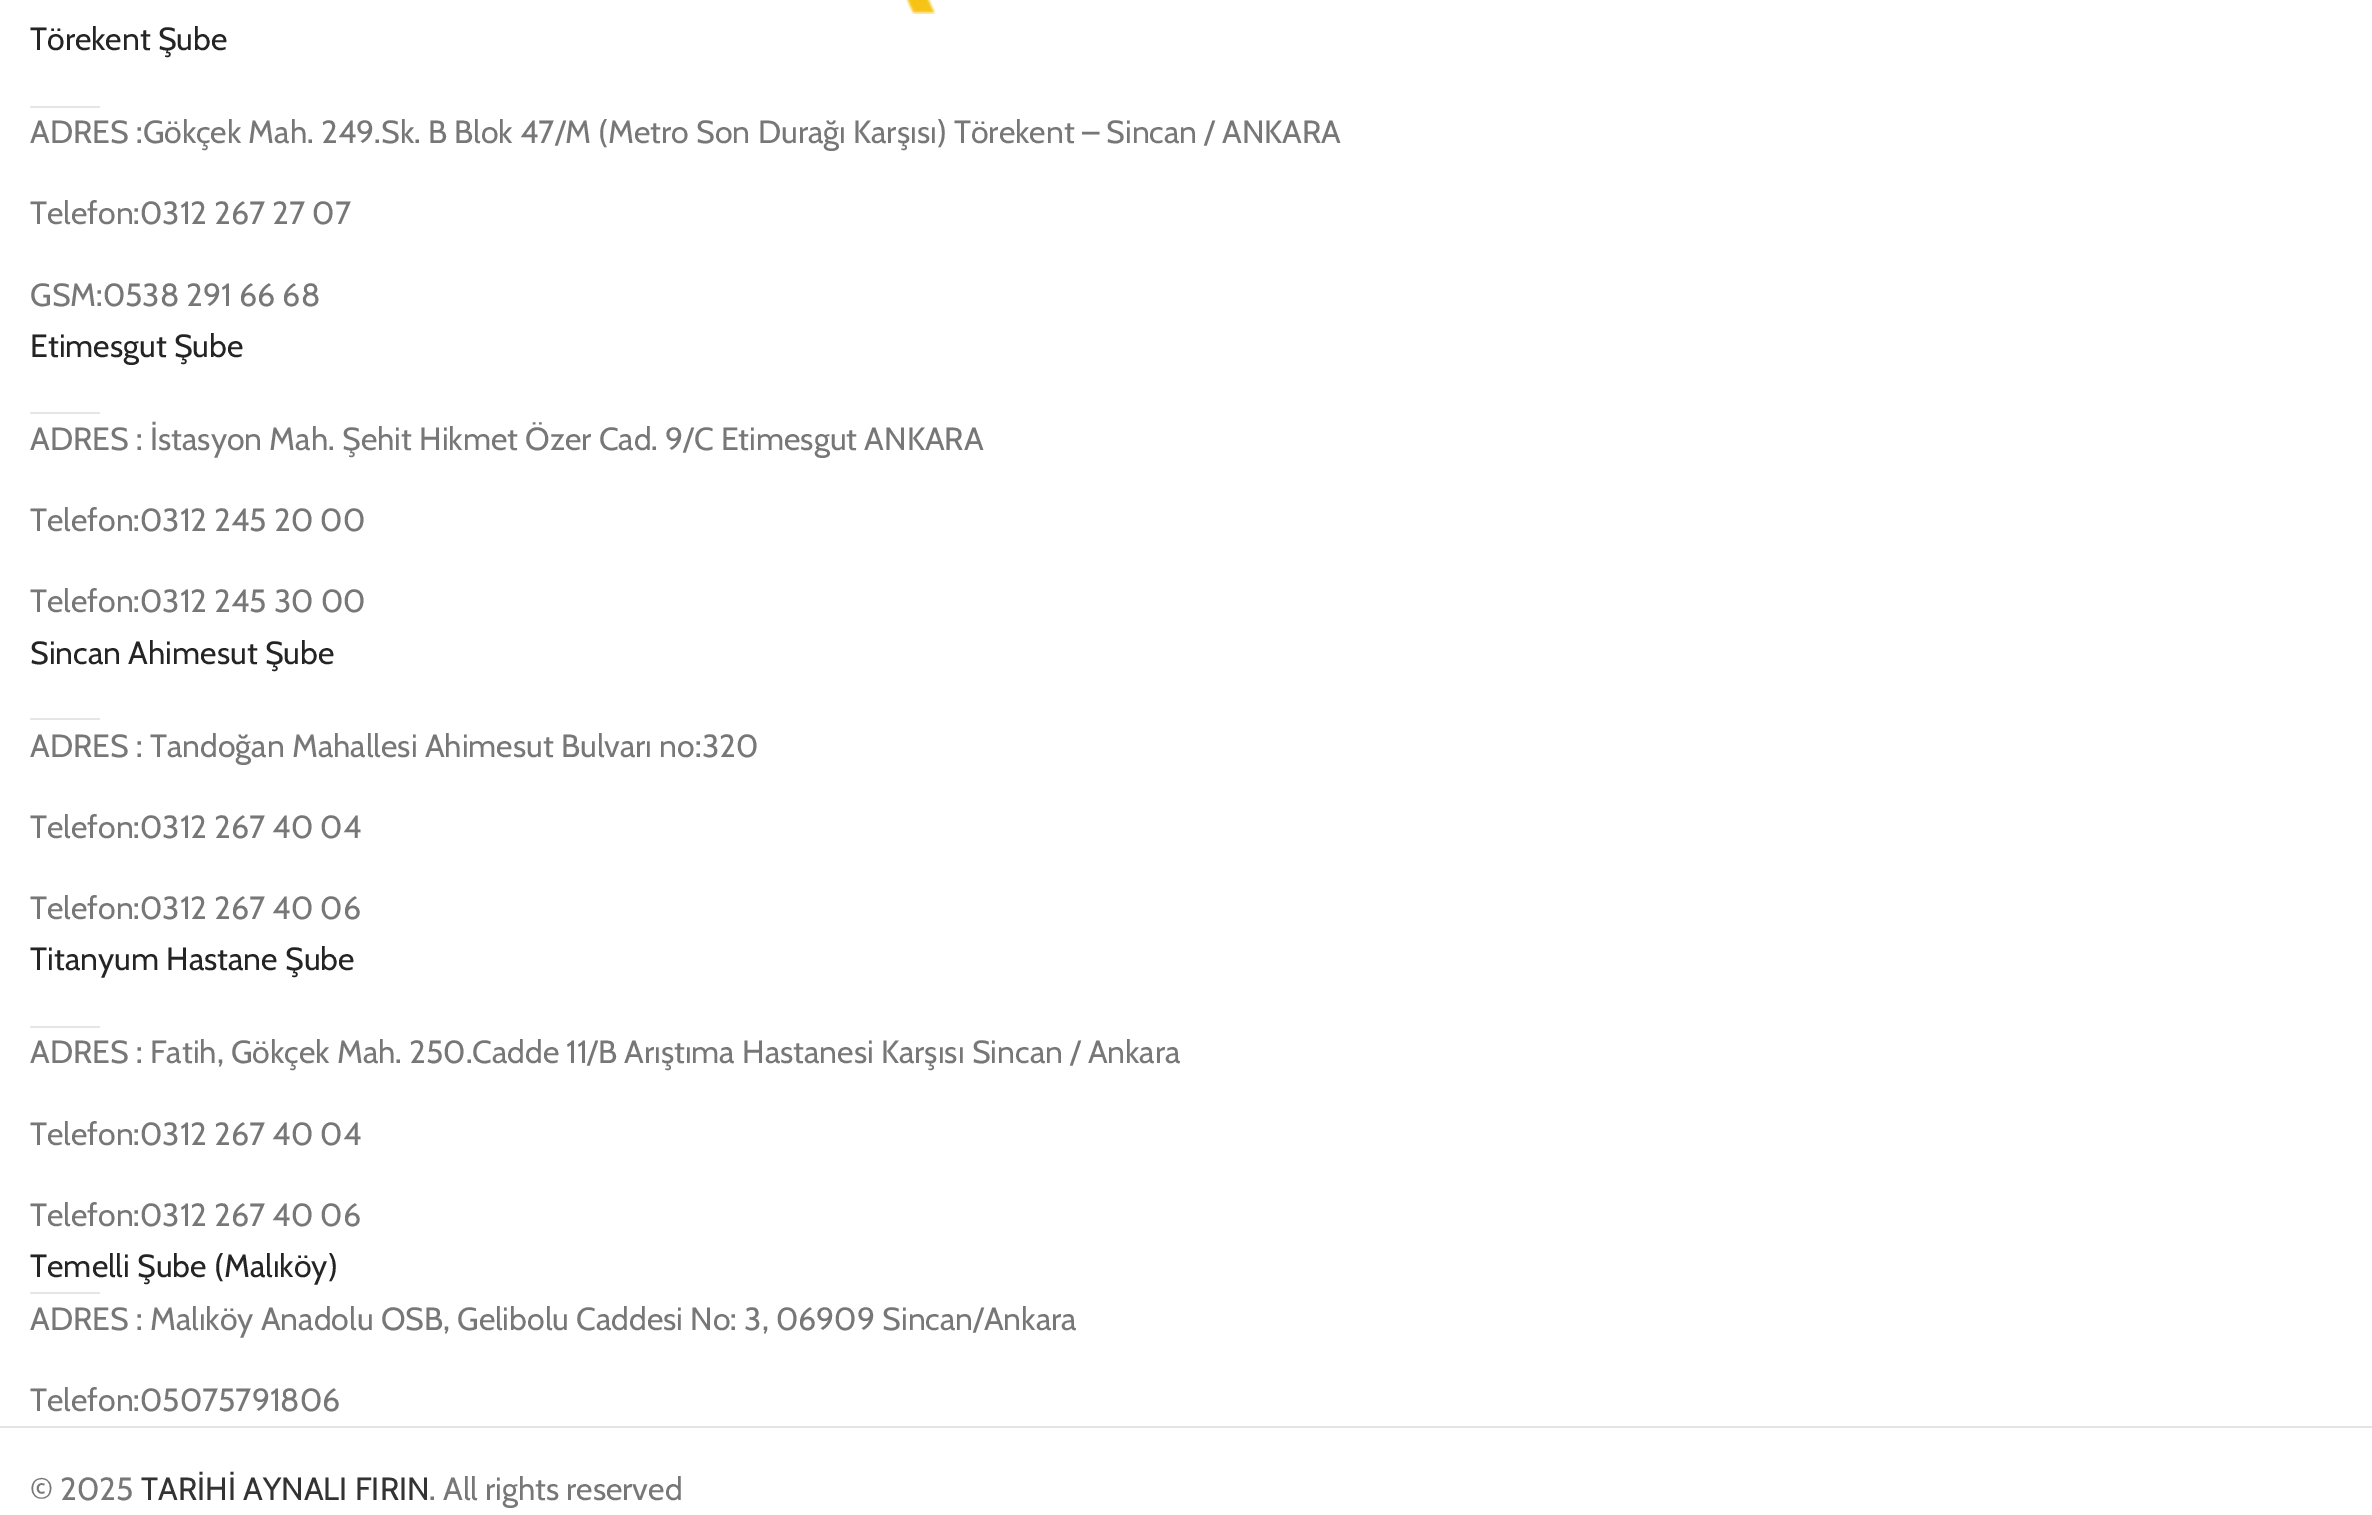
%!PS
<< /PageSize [2372 1515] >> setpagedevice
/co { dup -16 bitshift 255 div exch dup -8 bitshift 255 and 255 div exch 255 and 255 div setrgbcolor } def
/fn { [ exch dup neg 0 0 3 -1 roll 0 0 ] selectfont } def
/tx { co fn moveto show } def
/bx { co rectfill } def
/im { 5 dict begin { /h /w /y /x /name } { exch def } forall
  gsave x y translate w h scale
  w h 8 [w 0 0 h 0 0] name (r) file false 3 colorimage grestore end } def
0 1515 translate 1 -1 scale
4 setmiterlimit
0 0 2372 1515 16#FFFFFF bx
(media/1.raw) 905 0 31 14 im
30 106 70 2 16#E6E6E6 bx
30 412 70 2 16#E6E6E6 bx
30 718 70 2 16#E6E6E6 bx
30 1026 70 2 16#E6E6E6 bx
30 1292 70 2 16#E6E6E6 bx
0 1426 2372 2 16#E4E4E4 bx
(Törekent Şube) 30 50 /Cabin-Regular 32 16#242424 tx
(ADRES :Gökçek Mah. 249.Sk. B Blok 47/M \(Metro Son Durağı Karşısı\) Törekent – Sincan / ANKARA) 30 143 /Cabin-Regular 32 16#777777 tx
(Telefon:0312 267 27 07) 30 224 /Cabin-Regular 32 16#777777 tx
(GSM:0538 291 66 68) 30 306 /Cabin-Regular 32 16#777777 tx
(Etimesgut Şube) 30 357 /Cabin-Regular 32 16#242424 tx
(ADRES : İstasyon Mah. Şehit Hikmet Özer Cad. 9/C Etimesgut ANKARA) 30 450 /Cabin-Regular 32 16#777777 tx
(Telefon:0312 245 20 00) 30 531 /Cabin-Regular 32 16#777777 tx
(Telefon:0312 245 30 00) 30 612 /Cabin-Regular 32 16#777777 tx
(Sincan Ahimesut Şube) 30 664 /Cabin-Regular 32 16#242424 tx
(ADRES : Tandoğan Mahallesi Ahimesut Bulvarı no:320) 30 757 /Cabin-Regular 32 16#777777 tx
(Telefon:0312 267 40 04) 30 838 /Cabin-Regular 32 16#777777 tx
(Telefon:0312 267 40 06) 30 919 /Cabin-Regular 32 16#777777 tx
(Titanyum Hastane Şube) 30 970 /Cabin-Regular 32 16#242424 tx
(ADRES : Fatih, Gökçek Mah. 250.Cadde 11/B Arıştıma Hastanesi Karşısı Sincan / Ankara) 30 1063 /Cabin-Regular 32 16#777777 tx
(Telefon:0312 267 40 04) 30 1145 /Cabin-Regular 32 16#777777 tx
(Telefon:0312 267 40 06) 30 1226 /Cabin-Regular 32 16#777777 tx
(Temelli Şube \(Malıköy\)) 30 1277 /Cabin-Regular 32 16#242424 tx
(ADRES : Malıköy Anadolu OSB, Gelibolu Caddesi No: 3, 06909 Sincan/Ankara) 30 1330 /Cabin-Regular 32 16#777777 tx
(Telefon:05075791806) 30 1411 /Cabin-Regular 32 16#777777 tx
(© 2025) 30 1500 /Cabin-Regular 32 16#777777 tx
(TARİHİ AYNALI FIRIN) 141 1500 /Cabin-Regular 32 16#333333 tx
(. All rights reserved) 429 1500 /Cabin-Regular 32 16#777777 tx
showpage
